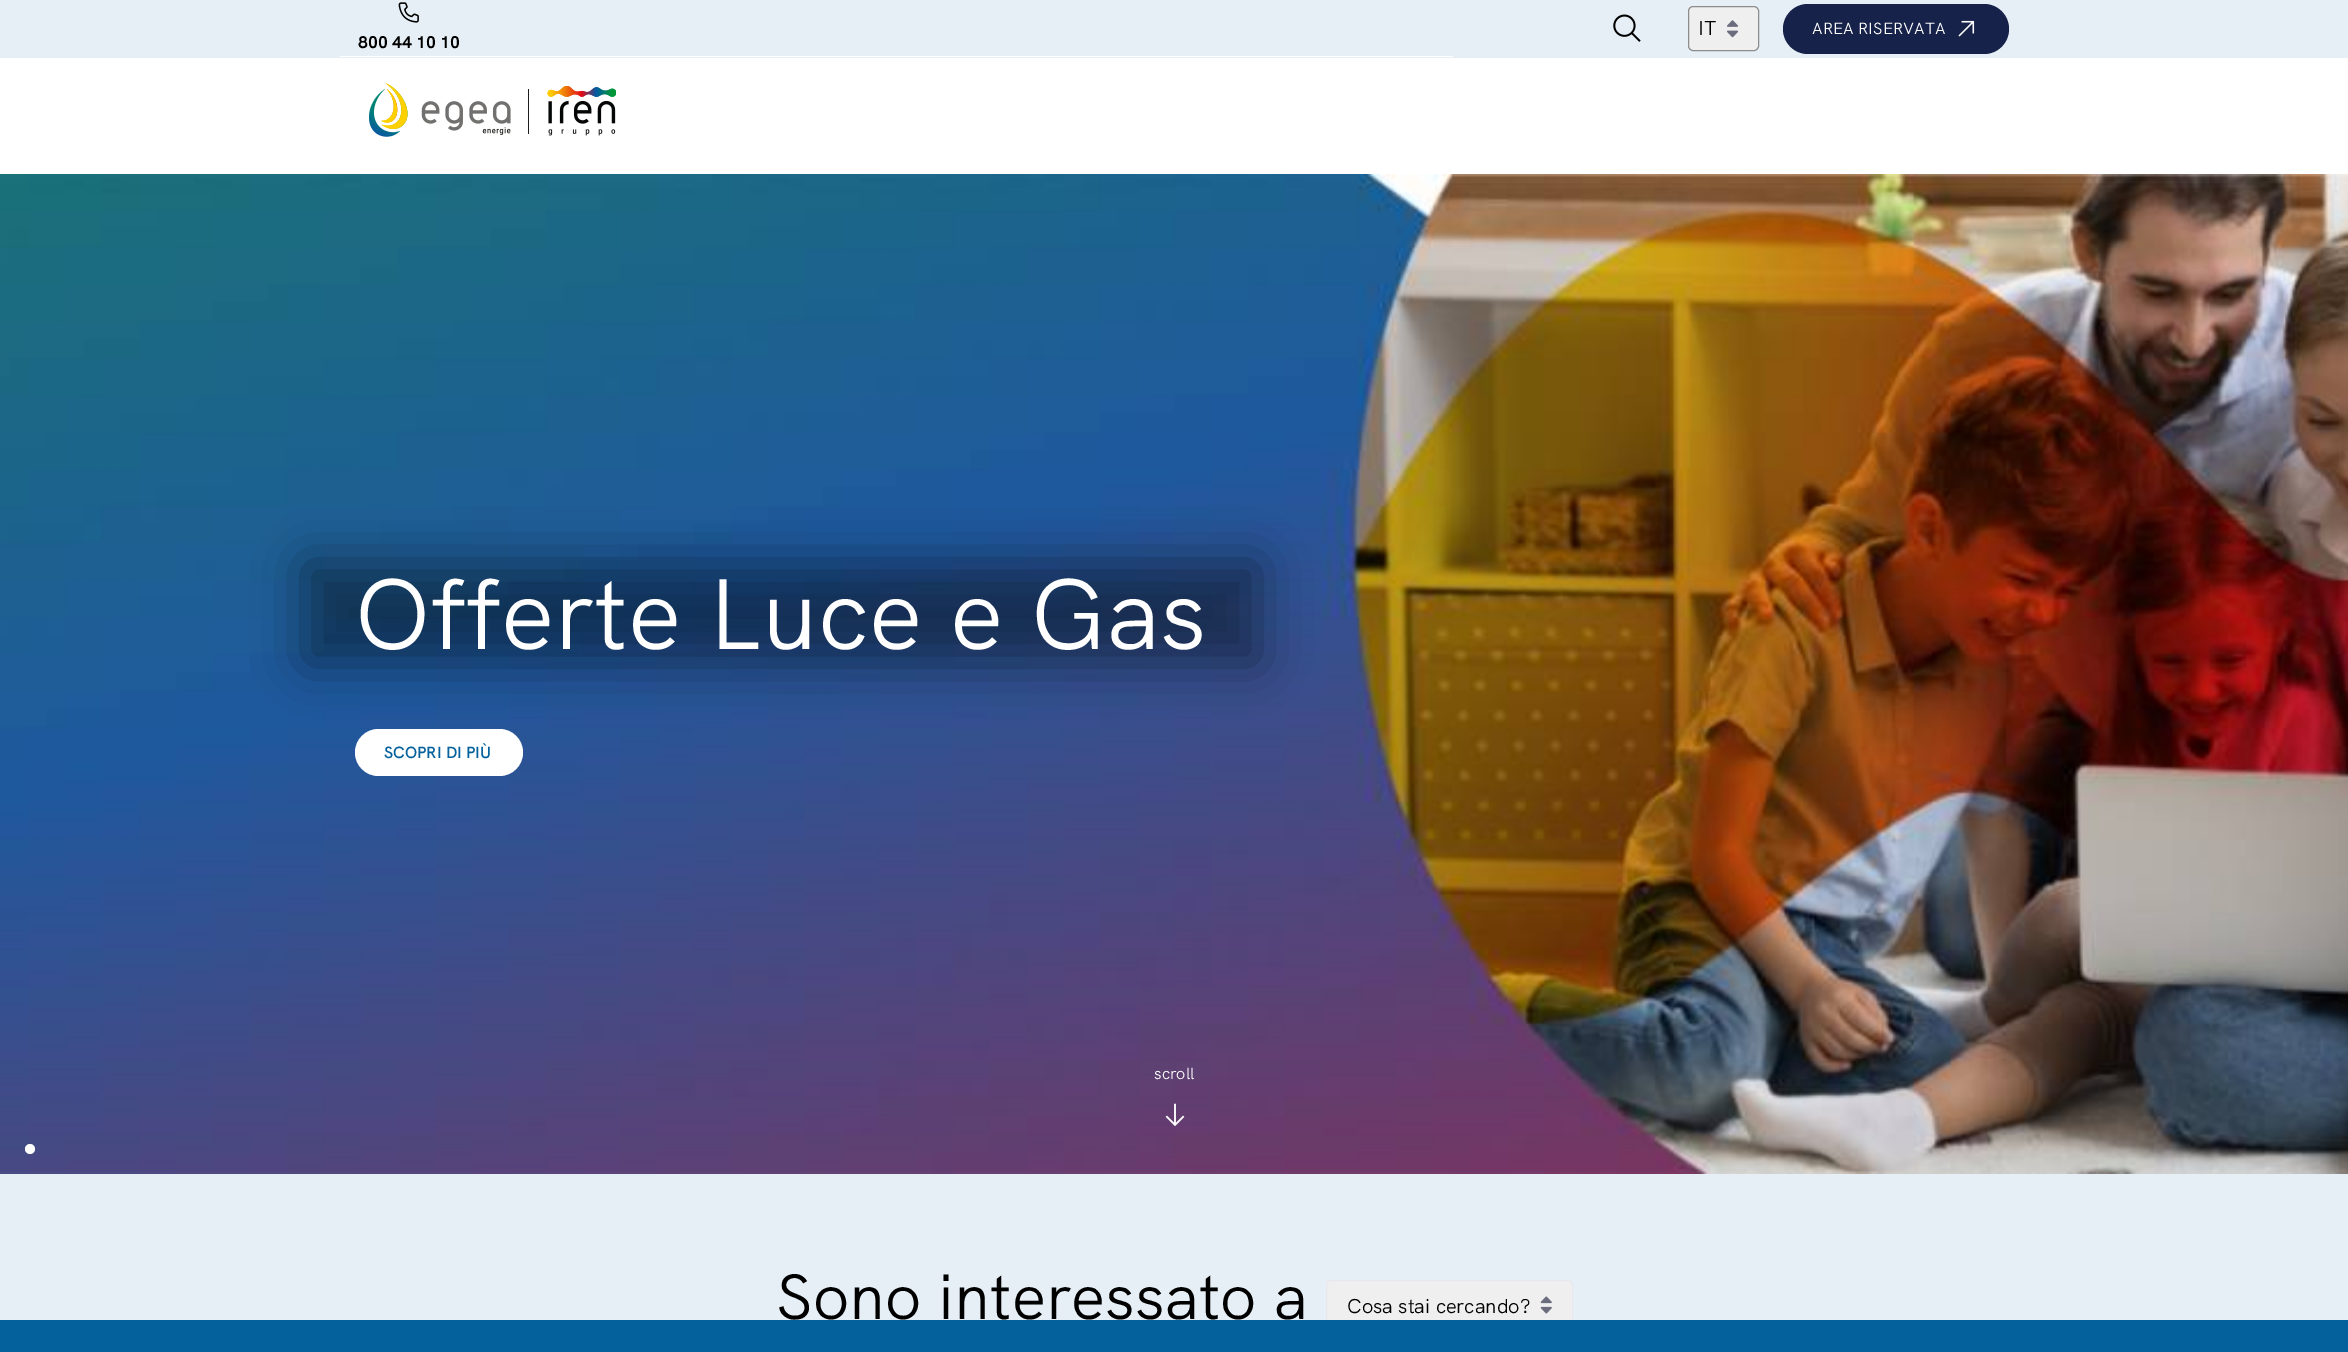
%!PS
<< /PageSize [2348 1352] /PageUsesTransparency true >> setpagedevice
/fl/fill load def
/st/stroke load def
/co { dup -16 bitshift 255 div exch dup -8 bitshift 255 and 255 div exch 255 and 255 div setrgbcolor } def
/fn { [ exch dup neg 0 0 3 -1 roll 0 0 ] selectfont } def
/tx { co fn moveto show } def
/bx { co rectfill } def
/al { dup .setfillconstantalpha .setstrokeconstantalpha } def
/ci { newpath 0 360 arc closepath } def
/rr { 5 dict begin { /r /h /w /y /x } { exch def } forall
  x r add y moveto x w add y 2 copy h add r arct x w add y h add x 1 index r arct
  x y h add x y r arct x y 2 copy exch w add exch r arct closepath end } def
/sh { 12 dict begin { /a /b /q /h /w /y /x } { exch def } forall gsave /was 0 def
  9 -2 -9 { dup b mul 4 div /e exch def 1 sub .425 mul 2.718 exch exp 1 add a .99 .min exch div /now exch def
    1 1 now sub 1 was sub div sub al /was now def
    w h .min e 2 mul add 0 gt { x e sub y e sub w e 2 mul add h e 2 mul add
      q e add b .6 mul add w h .min 2 div e add .min 0 .max rr fill } if } for grestore end } def
/im { 5 dict begin { /h /w /y /x /name } { exch def } forall
  gsave x y translate w h scale
  w h 8 [w 0 0 h 0 0] name (r) file false 3 colorimage grestore end } def
0 .pushpdf14devicefilter
0 1352 translate 1 -1 scale
4 setmiterlimit
0 0 2348 1352 16#FFFFFF bx
0 0 2348 58 16#E6EFF5 bx
(media/1.raw) 1613 14 28 28 im
16#EFEFEF co
1688 6 71 45 5 rr fl
(media/2.raw) 1727 20 12 18 im
16#8D8D8F co
1688.5 6.5 70 44 4.5 rr st
16#17224A co
1783 4 226 50 25 rr fl
(media/3.raw) 1958 20 17 17 im
(media/4.raw) 398 2 21 21 im
340 56 1113 1 16#FFFFFF bx
(media/5.raw) 369 83 247 54 im
(media/6.raw) 0 174 2348 1000 im
16#000000 co
305 563 953 100 0 25 .45 sh
16#FFFFFF co
355 729 168 47 23.5 rr fl
(media/7.raw) 1165 1103 20 24 im
30 1149 5 ci fl
0 1174 2348 146 16#E6EFF5 bx
16#EFEFEF co
1326 1280 247 50 5 rr fl
(media/8.raw) 1540 1296 12 18 im
16#E7E7ED co
1326.5 1280.5 246 49 4.5 rr st
0 1320 2348 32 16#05619B bx
(IT) 1698 35 /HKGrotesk-Regular 20 16#000000 tx
(AREA RISERVATA) 1812 34 /HKGrotesk-Regular 16.25 16#FFFFFF tx
(800 44 10 10) 358 48 /HKGrotesk-Bold 17 16#000000 tx
(Offerte Luce e Gas) 354 649 /HKGrotesk-Regular 100 16#FFFFFF tx
(SCOPRI DI PIÙ) 384 758 /HKGrotesk-SemiBold 16.25 16#05619B tx
(scroll) 1154 1079 /HKGrotesk-Regular 16.25 16#FFFFFF tx
(Sono interessato a) 776 1319 /HKGrotesk-Regular 63.75 16#000000 tx
(Cosa stai cercando?) 1347 1313 /HKGrotesk-Regular 20 16#000000 tx
.poppdf14devicefilter showpage
